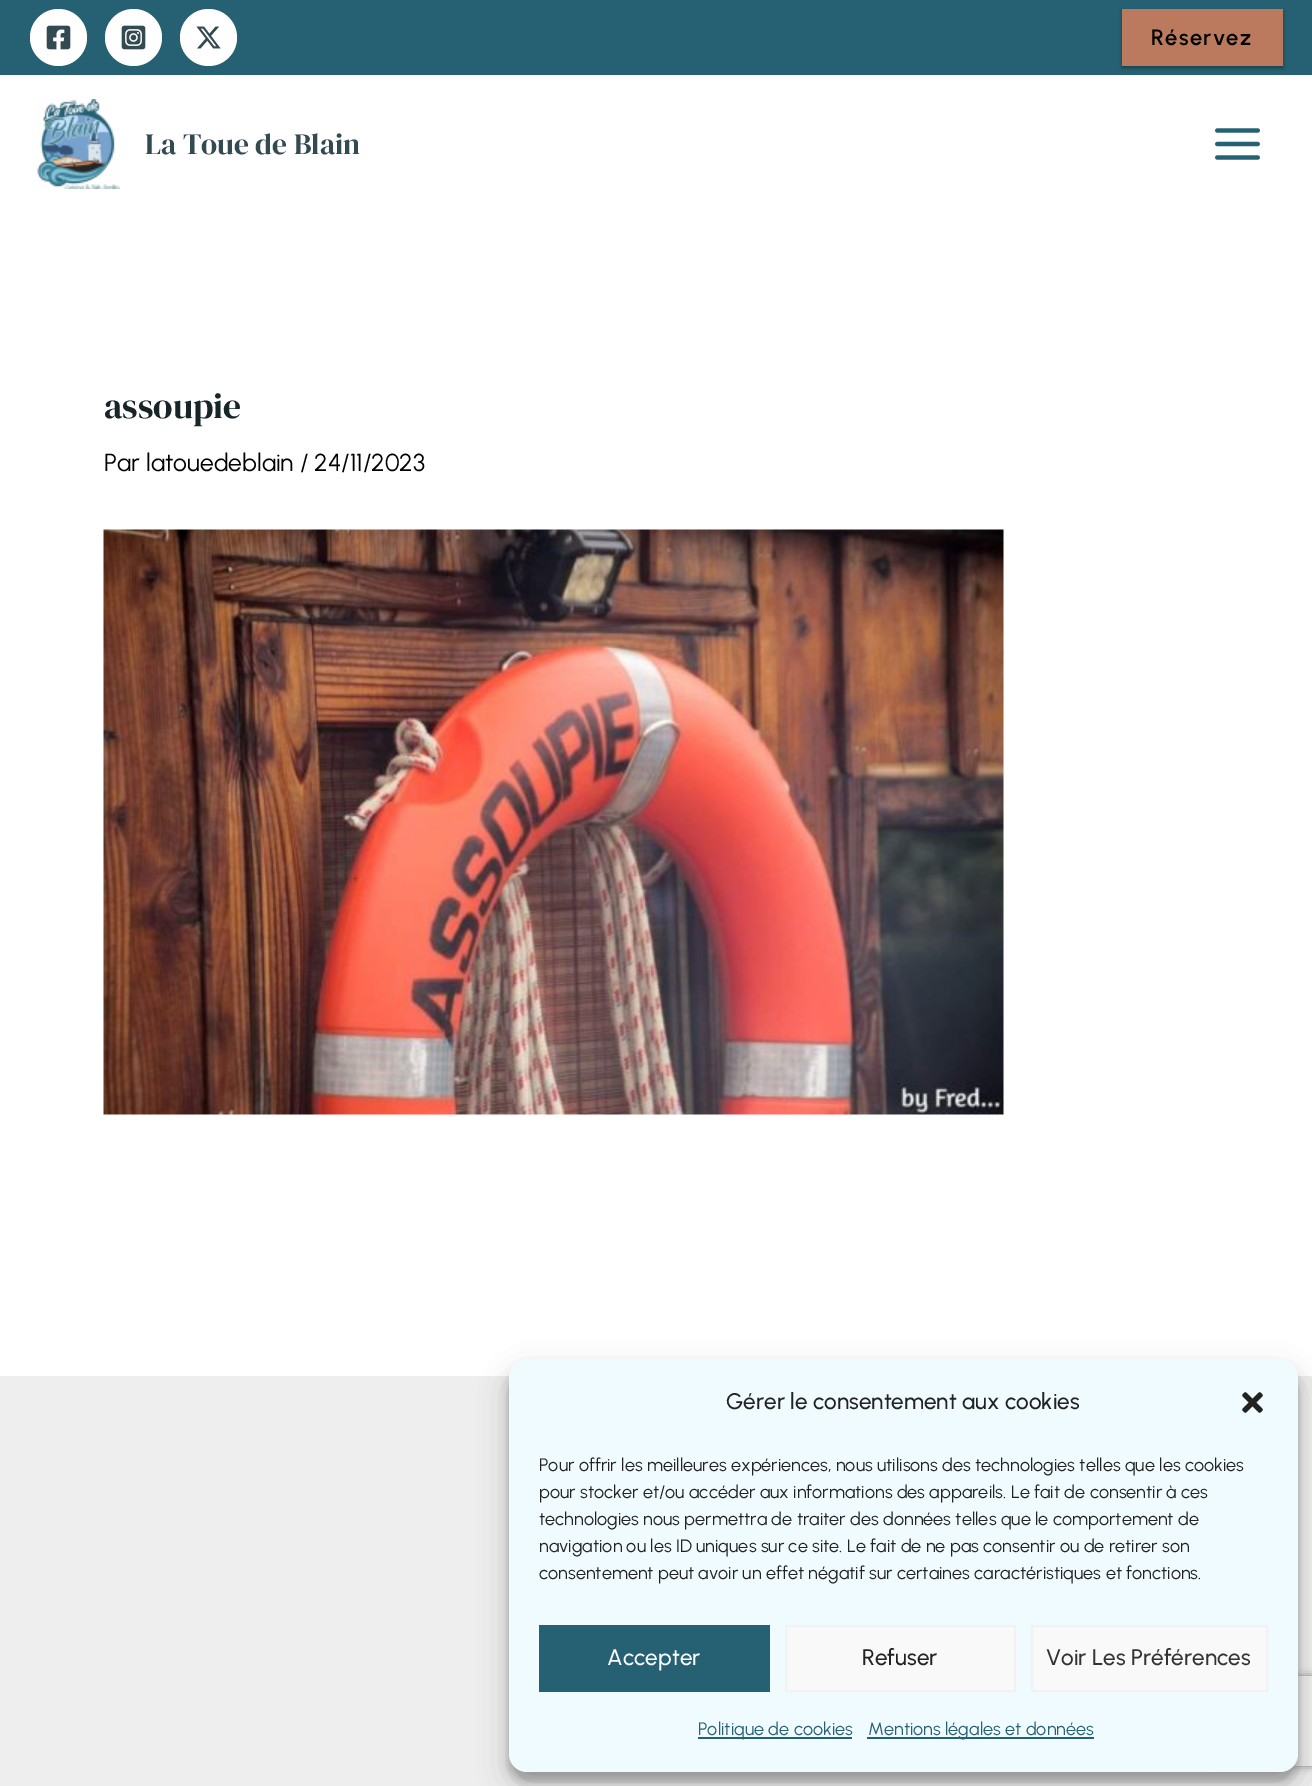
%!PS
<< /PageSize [1312 1786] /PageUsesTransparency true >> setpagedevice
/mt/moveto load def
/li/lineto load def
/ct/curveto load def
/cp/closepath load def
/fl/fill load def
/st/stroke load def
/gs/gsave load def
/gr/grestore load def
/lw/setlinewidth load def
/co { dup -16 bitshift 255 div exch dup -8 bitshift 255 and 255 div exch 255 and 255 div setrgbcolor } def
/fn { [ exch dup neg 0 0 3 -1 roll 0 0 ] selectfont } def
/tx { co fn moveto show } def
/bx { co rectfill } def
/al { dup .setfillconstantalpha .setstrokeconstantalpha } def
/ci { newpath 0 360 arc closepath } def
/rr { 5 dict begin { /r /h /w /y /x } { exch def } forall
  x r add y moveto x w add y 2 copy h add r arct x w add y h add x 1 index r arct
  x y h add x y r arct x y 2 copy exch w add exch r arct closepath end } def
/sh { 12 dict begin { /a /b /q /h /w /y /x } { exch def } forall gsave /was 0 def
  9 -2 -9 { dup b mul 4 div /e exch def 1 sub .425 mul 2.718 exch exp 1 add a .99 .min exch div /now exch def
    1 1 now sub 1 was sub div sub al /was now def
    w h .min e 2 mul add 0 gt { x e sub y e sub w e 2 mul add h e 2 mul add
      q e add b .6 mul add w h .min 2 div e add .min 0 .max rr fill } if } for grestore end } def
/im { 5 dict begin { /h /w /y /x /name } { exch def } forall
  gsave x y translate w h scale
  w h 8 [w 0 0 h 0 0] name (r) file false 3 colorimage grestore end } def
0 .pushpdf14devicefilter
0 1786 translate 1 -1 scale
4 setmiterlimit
0 0 1312 1786 16#FFFFFF bx
0 0 1312 75 16#266173 bx
16#FFFFFF co
58.5 37.5 28.5 ci fl
(media/1.raw) 46 25 25 25 im
133.5 37.5 28.5 ci fl
(media/2.raw) 121 25 25 25 im
208.5 37.5 28.5 ci fl
(media/3.raw) 196 26 25 23 im
16#000000 co
1122 11 161 57 0 2 .35 sh
1122 9 161 57 16#BB7A5D bx
(media/4.raw) 37 99 83 90 im
(media/5.raw) 1215 128 45 32 im
(media/6.raw) 103 529 901 586 im
0 1376 1312 410 16#EEEEEE bx
16#000000 co
509 1368 789 413 18 4.5 .23 sh
509 1374 789 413 18 15 .19 sh
gs
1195 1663 mt 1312 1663 li 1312 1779 li 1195 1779 li cp 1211 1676 mt 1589 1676 li 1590.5 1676 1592 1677.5 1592 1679 ct 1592 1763 li 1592 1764.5 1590.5 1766 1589 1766 ct 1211 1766 li 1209.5 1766 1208 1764.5 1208 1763 ct 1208 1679 li 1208 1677.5 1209.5 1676 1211 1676 ct cp eoclip newpath
16#808080 co
1208 1676 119 90 3 4 1 sh
gr
16#F0FBFF co
509 1359 789 413 18 rr fl
(media/7.raw) 1242 1392 21 21 im
539 1625 231 67 16#266173 bx
16#F9F9F9 co
786 1626 mt 1015 1626 li 1015 1691 li 786 1691 li cp gs fl gr
16#F2F2F2 co
2 lw
st
16#F9F9F9 co
1032 1626 mt 1267 1626 li 1267 1691 li 1032 1691 li cp gs fl gr
16#F2F2F2 co
st
698 1737 154 2 16#266173 bx
867 1737 227 2 16#266173 bx
/Urbanist-SemiBold 22 fn
16#000000 co
1151 45 mt 1.25 0 (Réservez) ashow
(La Toue de Blain) 145 154 /DMSerifDisplay-Regular 29.5 16#334A52 tx
(assoupie) 104 418 /DMSerifDisplay-Regular 35.5 16#172428 tx
(Par latouedeblain / 24/11/2023) 104 471 /Urbanist-Regular 24.6 16#000000 tx
(Gérer le consentement aux cookies) 726 1409 /Urbanist-Medium 22.5 16#222222 tx
(Pour offrir les meilleures expériences, nous utilisons des technologies telles que les cookies) 539 1471 /Urbanist-Regular 18 16#222222 tx
(pour stocker et/ou accéder aux informations des appareils. Le fait de consentir à ces) 539 1498 /Urbanist-Regular 18 16#222222 tx
(technologies nous permettra de traiter des données telles que le comportement de) 539 1525 /Urbanist-Regular 18 16#222222 tx
(navigation ou les ID uniques sur ce site. Le fait de ne pas consentir ou de retirer son) 539 1552 /Urbanist-Regular 18 16#222222 tx
(consentement peut avoir un effet négatif sur certaines caractéristiques et fonctions.) 539 1579 /Urbanist-Regular 18 16#222222 tx
(Accepter) 607 1665 /Urbanist-Medium 22.5 16#FFFFFF tx
(Refuser) 862 1665 /Urbanist-Medium 22.5 16#222222 tx
(Voir Les Préférences) 1046 1665 /Urbanist-Medium 22.5 16#333333 tx
(Politique de cookies) 698 1735 /Urbanist-Regular 18 16#266173 tx
(Mentions légales et données) 868 1735 /Urbanist-Regular 18 16#266173 tx
.poppdf14devicefilter showpage
